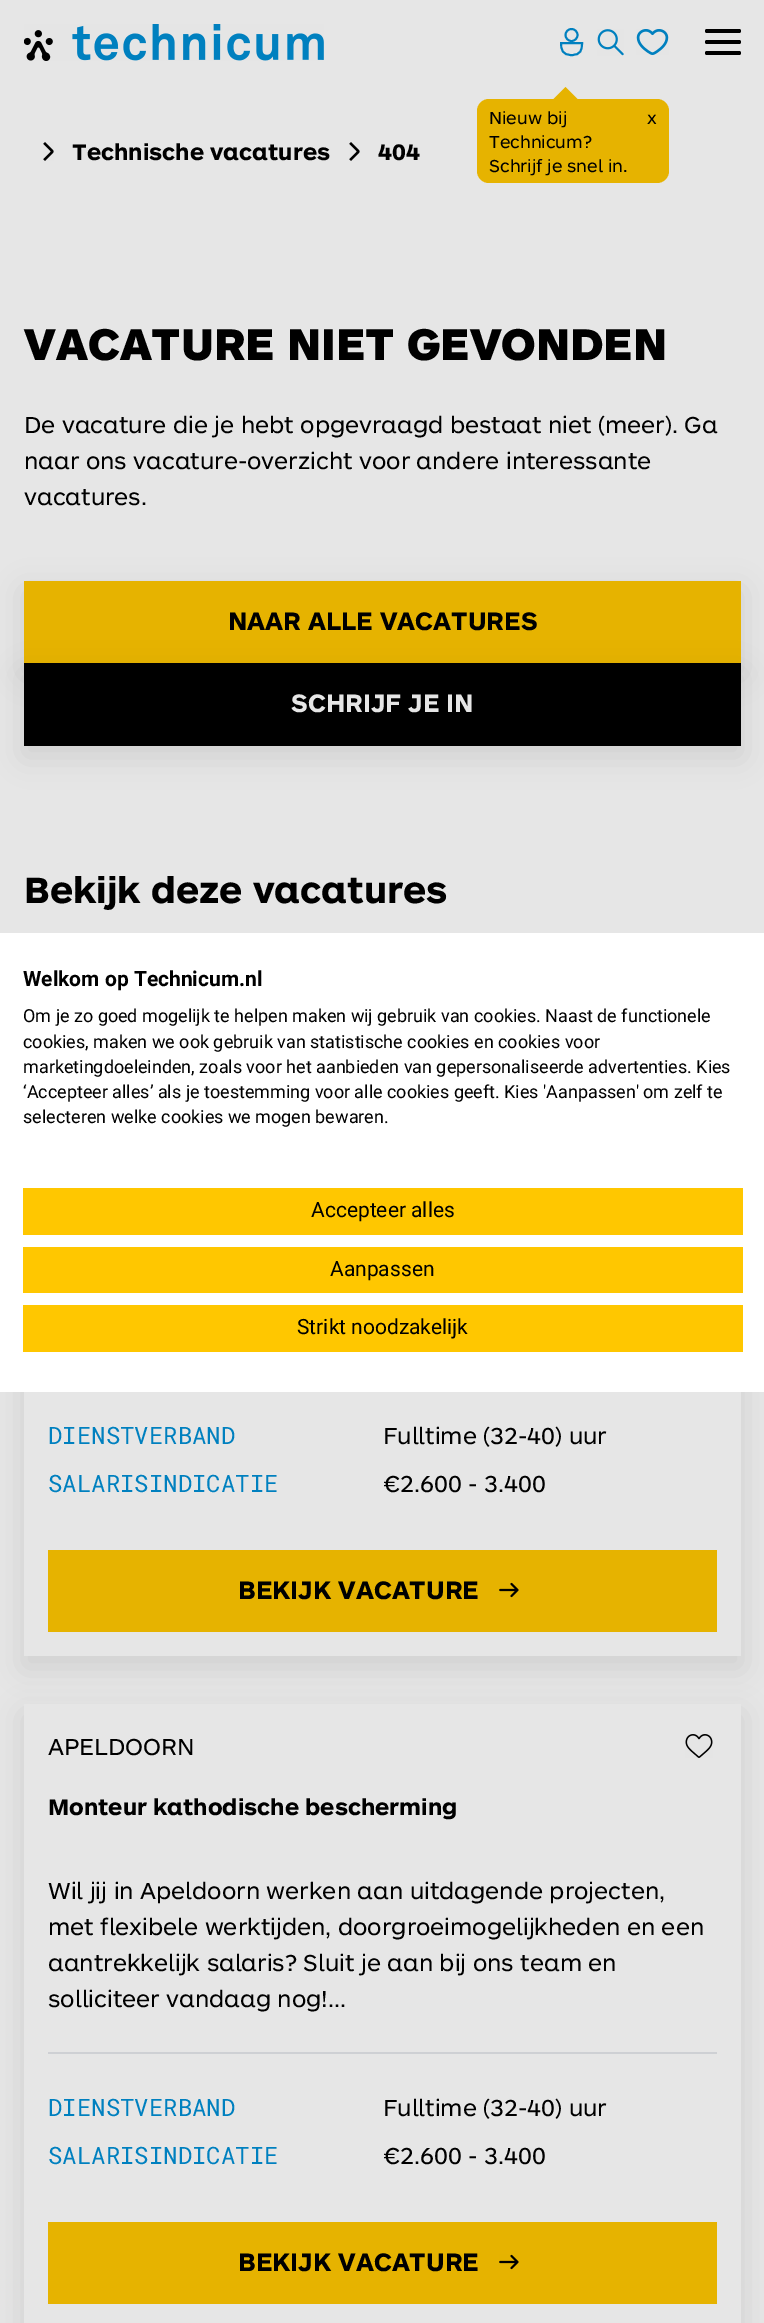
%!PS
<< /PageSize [764 2323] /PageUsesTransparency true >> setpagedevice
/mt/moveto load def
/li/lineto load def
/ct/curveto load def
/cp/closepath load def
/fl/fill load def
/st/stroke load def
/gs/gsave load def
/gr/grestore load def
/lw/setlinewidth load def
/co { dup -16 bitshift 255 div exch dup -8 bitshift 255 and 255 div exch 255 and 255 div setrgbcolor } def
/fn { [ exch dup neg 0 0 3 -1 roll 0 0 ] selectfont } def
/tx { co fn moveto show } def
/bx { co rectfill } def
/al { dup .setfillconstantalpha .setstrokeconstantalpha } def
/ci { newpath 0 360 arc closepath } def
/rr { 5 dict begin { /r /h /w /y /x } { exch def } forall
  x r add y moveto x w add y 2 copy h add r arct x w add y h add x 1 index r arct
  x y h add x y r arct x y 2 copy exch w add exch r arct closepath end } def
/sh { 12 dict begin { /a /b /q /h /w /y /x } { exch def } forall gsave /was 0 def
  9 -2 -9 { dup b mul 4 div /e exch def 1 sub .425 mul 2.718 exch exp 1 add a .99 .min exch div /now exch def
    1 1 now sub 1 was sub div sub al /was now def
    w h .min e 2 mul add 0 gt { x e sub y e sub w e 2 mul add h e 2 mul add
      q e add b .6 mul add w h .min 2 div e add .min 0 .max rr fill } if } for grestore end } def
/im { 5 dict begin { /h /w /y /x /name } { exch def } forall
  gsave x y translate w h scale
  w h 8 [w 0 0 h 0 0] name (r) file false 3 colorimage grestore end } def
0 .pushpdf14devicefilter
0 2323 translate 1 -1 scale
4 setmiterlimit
0 0 764 2323 16#E6E6E6 bx
(media/1.raw) 24 24 300 37 im
(media/2.raw) 597 29 27 27 im
(media/3.raw) 636 29 33 26 im
16#000000 co
705 29 36 4 2 rr fl
705 40 36 4 2 rr fl
705 51 36 4 2 rr fl
16#0080BF co
1.9 lw
571.5 35 6 ci st
571.5 55 mt 562.5 55 561 50 561 43 ct 582 43 li 582 50 581 55 571.5 55 ct cp st
16#E6B300 co
477 99 192 84 12 rr fl
580.5 102 mt 550.5 102 li 565.5 87 li cp fl
(media/4.raw) 43 142 11 19 im
(media/4.raw) 349 142 11 19 im
16#000000 co
24 591 717 83 0 15 .1 sh
24 581 717 82 16#E6B300 bx
16#000000 co
24 674 717 82 0 15 .1 sh
24 663 717 83 16#000000 bx
gs
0 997 mt 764 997 li 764 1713 li 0 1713 li cp 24 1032 mt 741 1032 li 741 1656 li 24 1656 li cp eoclip newpath
24 1043 717 624 0 15 .1 sh
gr
48 1550 669 82 16#E6B300 bx
(media/5.raw) 499 1582 20 16 im
gs
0 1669 mt 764 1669 li 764 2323 li 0 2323 li cp 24 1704 mt 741 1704 li 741 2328 li 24 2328 li cp eoclip newpath
16#000000 co
24 1715 717 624 0 15 .1 sh
gr
(media/6.raw) 685 1734 28 24 im
48 2052 669 2 16#CED0D4 bx
48 2222 669 82 16#E6B300 bx
(media/5.raw) 499 2254 20 16 im
0 933 764 459 16#FFFFFF bx
23 1188 720 47 16#FFC700 bx
23 1247 720 46 16#FFC700 bx
23 1305 720 47 16#FFC700 bx
(Nieuw bij) 489 124 /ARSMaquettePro-Regular 18 16#000000 tx
(Technicum?) 489 148 /ARSMaquettePro-Regular 18 16#000000 tx
(Schrijf je snel in.) 489 172 /ARSMaquettePro-Regular 18 16#000000 tx
(x) 647 124 /ARSMaquettePro-Regular 18 16#000000 tx
(Technische vacatures) 72 160 /ARSMaquettePro-Bold 24 16#000000 tx
(404) 378 160 /ARSMaquettePro-Bold 24 16#000000 tx
(VACATURE NIET GEVONDEN) 24 360 /ARSMaquettePro-Black 48 16#000000 tx
(De vacature die je hebt opgevraagd bestaat niet \(meer\). Ga) 24 433 /ARSMaquettePro-Regular 24 16#000000 tx
(naar ons vacature-overzicht voor andere interessante) 24 469 /ARSMaquettePro-Regular 24 16#000000 tx
(vacatures.) 24 505 /ARSMaquettePro-Regular 24 16#000000 tx
(NAAR ALLE VACATURES) 228 630 /ARSMaquettePro-Bold 27 16#000000 tx
(SCHRIJF JE IN) 291 712 /ARSMaquettePro-Bold 27 16#E6E6E6 tx
(Bekijk deze vacatures) 24 903 /ARSMaquettePro-Bold 39 16#000000 tx
(DIENSTVERBAND) 48 1444 /RobotoMono-Regular 24 16#0080BF tx
(Fulltime \(32-40\) uur) 383 1444 /ARSMaquettePro-Regular 24 16#000000 tx
(SALARISINDICATIE) 48 1492 /RobotoMono-Regular 24 16#0080BF tx
(€2.600 - 3.400) 383 1492 /ARSMaquettePro-Regular 24 16#000000 tx
(BEKIJK VACATURE) 238 1599 /ARSMaquettePro-Bold 27 16#000000 tx
(APELDOORN) 48 1755 /ARSMaquettePro-Regular 24 16#000000 tx
(Monteur kathodische bescherming) 48 1815 /ARSMaquettePro-Bold 24 16#000000 tx
(Wil jij in Apeldoorn werken aan uitdagende projecten,) 48 1899 /ARSMaquettePro-Regular 24 16#000000 tx
(met flexibele werktijden, doorgroeimogelijkheden en een) 48 1935 /ARSMaquettePro-Regular 24 16#000000 tx
(aantrekkelijk salaris? Sluit je aan bij ons team en) 48 1971 /ARSMaquettePro-Regular 24 16#000000 tx
(solliciteer vandaag nog!...) 48 2007 /ARSMaquettePro-Regular 24 16#000000 tx
(DIENSTVERBAND) 48 2116 /RobotoMono-Regular 24 16#0080BF tx
(Fulltime \(32-40\) uur) 383 2116 /ARSMaquettePro-Regular 24 16#000000 tx
(SALARISINDICATIE) 48 2164 /RobotoMono-Regular 24 16#0080BF tx
(€2.600 - 3.400) 383 2164 /ARSMaquettePro-Regular 24 16#000000 tx
(BEKIJK VACATURE) 238 2271 /ARSMaquettePro-Bold 27 16#000000 tx
(Welkom op Technicum.nl) 23 986 /Roboto-Bold 21 16#000000 tx
(Om je zo goed mogelijk te helpen maken wij gebruik van cookies. Naast de functionele) 23 1022 /Roboto-Regular 18 16#000000 tx
(cookies, maken we ook gebruik van statistische cookies en cookies voor) 23 1048 /Roboto-Regular 18 16#000000 tx
(marketingdoeleinden, zoals voor het aanbieden van gepersonaliseerde advertenties. Kies) 23 1073 /Roboto-Regular 18 16#000000 tx
(‘Accepteer alles’ als je toestemming voor alle cookies geeft. Kies 'Aanpassen' om zelf te) 23 1098 /Roboto-Regular 18 16#000000 tx
(selecteren welke cookies we mogen bewaren.) 23 1123 /Roboto-Regular 18 16#000000 tx
(Accepteer alles) 311 1217 /Roboto-Regular 21 16#000000 tx
(Aanpassen) 330 1276 /Roboto-Regular 21 16#000000 tx
(Strikt noodzakelijk) 297 1334 /Roboto-Regular 21 16#000000 tx
.poppdf14devicefilter showpage
